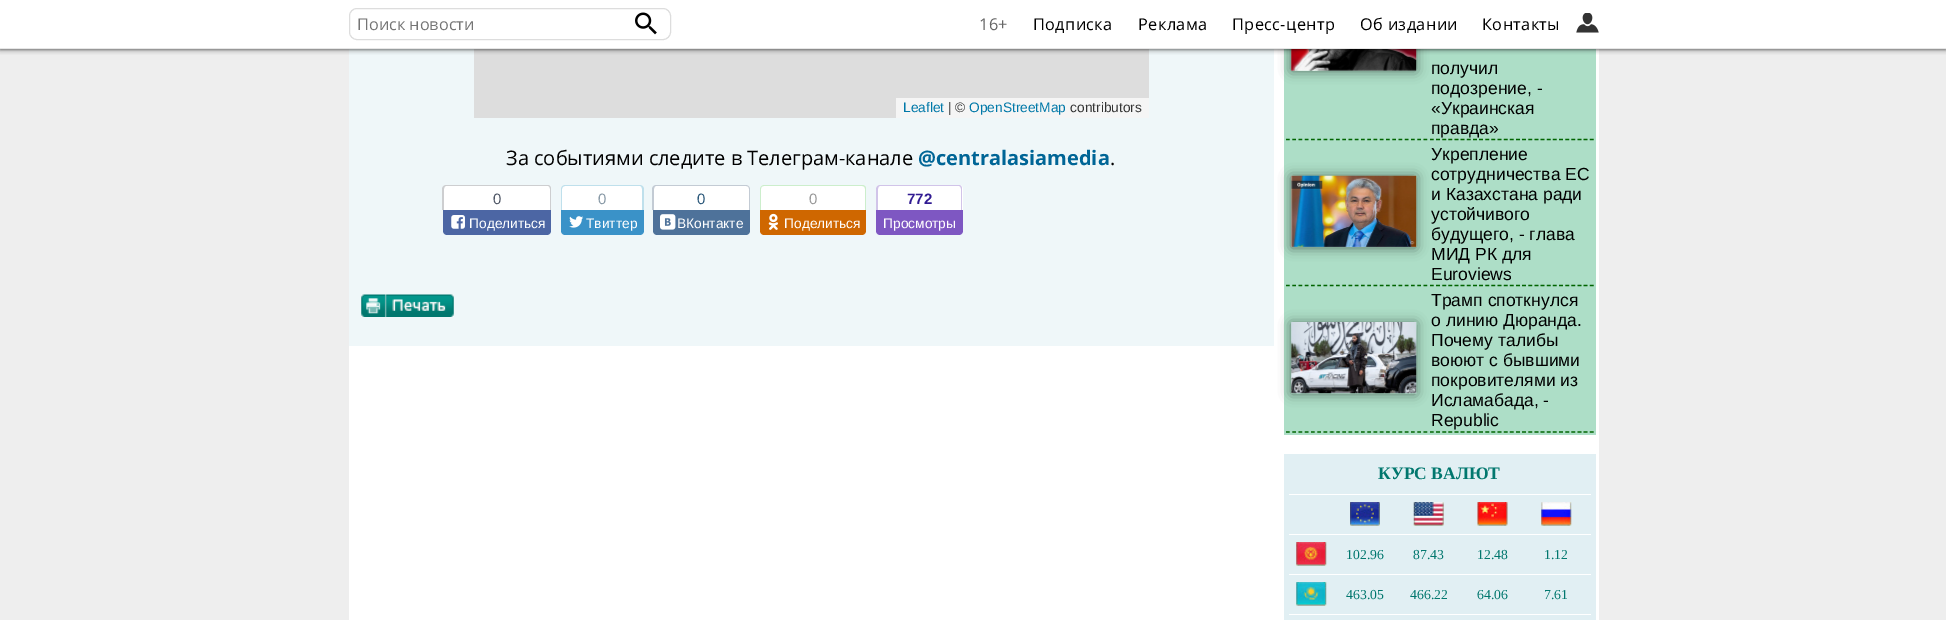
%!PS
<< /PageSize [1946 620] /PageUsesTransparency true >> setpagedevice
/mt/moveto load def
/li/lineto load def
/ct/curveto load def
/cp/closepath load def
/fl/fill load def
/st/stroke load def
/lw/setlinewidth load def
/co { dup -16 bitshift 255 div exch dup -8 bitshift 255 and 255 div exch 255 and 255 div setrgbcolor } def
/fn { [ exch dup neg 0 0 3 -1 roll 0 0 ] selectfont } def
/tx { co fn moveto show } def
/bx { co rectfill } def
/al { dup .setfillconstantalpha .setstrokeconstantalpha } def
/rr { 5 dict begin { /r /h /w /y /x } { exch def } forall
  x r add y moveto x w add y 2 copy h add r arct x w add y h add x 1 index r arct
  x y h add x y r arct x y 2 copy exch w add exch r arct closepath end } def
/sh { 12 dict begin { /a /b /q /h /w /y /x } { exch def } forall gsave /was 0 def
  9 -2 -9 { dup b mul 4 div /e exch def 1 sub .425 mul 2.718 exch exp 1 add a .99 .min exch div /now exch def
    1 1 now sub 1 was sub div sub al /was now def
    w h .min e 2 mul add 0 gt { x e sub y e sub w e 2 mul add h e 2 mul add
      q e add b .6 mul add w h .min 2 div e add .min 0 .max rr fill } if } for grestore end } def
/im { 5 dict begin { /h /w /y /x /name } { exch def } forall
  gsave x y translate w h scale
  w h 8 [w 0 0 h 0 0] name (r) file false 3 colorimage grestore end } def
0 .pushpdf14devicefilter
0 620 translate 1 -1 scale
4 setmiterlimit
0 0 1946 620 16#EEEEEE bx
349 49 1250 571 16#FFFFFF bx
1284 49 312 386 16#ADDEC7 bx
16#000000 co
1291 1 125 70 0 6 .5 sh
1291 176 125 72 0 6 .5 sh
1291 323 125 71 0 6 .5 sh
349 49 925 297 16#EFF7F9 bx
474 49 675 69 16#DDDDDD bx
(media/8.raw) 1291 49 126 22 im
16#000000 co
0 0 1946 49 0 2.5 .8 sh
0 0 1946 48 16#FFFFFF bx
0 48 1946 1 16#E6E6E6 bx
16#DDDDDD co
349.5 8.5 321 31 7.5 rr st
(media/1.raw) 635 12 22 23 im
(media/2.raw) 1576 13 23 20 im
896 98 253 20 16#F5F5F5 bx
16#FFFFFF co
447 185 mt 547 185 li 549 185 551 187 551 189 ct 551 210 li 443 210 li 443 189 li 443 187 445 185 447 185 ct cp fl
16#CDCED0 co
446 185 mt 548 185 li 550 185 551 187 551 189 ct 551 210 li 442 210 li 442 189 li 442 187 444 185 446 185 ct cp 446 186 mt 548 186 li 549 186 550 187 550 189 ct 550 210 li 444 210 li 444 189 li 444 187 445 186 446 186 ct cp eofill
16#4C66A4 co
443 210 mt 551 210 li 551 231 li 551 233 549 235 547 235 ct 447 235 li 445 235 443 233 443 231 ct cp fl
(media/3.raw) 451 215 14 14 im
16#FFFFFF co
565 185 mt 640 185 li 642 185 644 187 644 189 ct 644 210 li 561 210 li 561 189 li 561 187 563 185 565 185 ct cp fl
0.25 al
16#0084B4 co
565 185 mt 640 185 li 642 185 644 187 644 189 ct 644 210 li 561 210 li 561 189 li 561 187 563 185 565 185 ct cp 565 186 mt 640 186 li 641 186 642 187 642 189 ct 642 210 li 562 210 li 562 189 li 562 187 564 186 565 186 ct cp eofill
1 al
16#3A92C8 co
561 210 mt 644 210 li 644 231 li 644 233 642 235 640 235 ct 565 235 li 563 235 561 233 561 231 ct cp fl
(media/4.raw) 569 216 15 12 im
16#FFFFFF co
657 185 mt 746 185 li 748 185 750 187 750 189 ct 750 210 li 653 210 li 653 189 li 653 187 655 185 657 185 ct cp fl
16#C3CBD4 co
656 185 mt 746 185 li 748 185 750 187 750 189 ct 750 210 li 652 210 li 652 189 li 652 187 654 185 656 185 ct cp 656 186 mt 746 186 li 748 186 749 187 749 189 ct 749 210 li 654 210 li 654 189 li 654 187 655 186 656 186 ct cp eofill
16#4E729A co
653 210 mt 750 210 li 750 231 li 750 233 748 235 746 235 ct 657 235 li 655 235 653 233 653 231 ct cp fl
(media/5.raw) 660 214 16 16 im
16#FFFFFF co
764 185 mt 862 185 li 864 185 866 187 866 189 ct 866 210 li 760 210 li 760 189 li 760 187 762 185 764 185 ct cp fl
16#CCEECC co
764 185 mt 862 185 li 865 185 866 187 866 189 ct 866 210 li 760 210 li 760 189 li 760 187 762 185 764 185 ct cp 764 186 mt 862 186 li 864 186 865 187 865 189 ct 865 210 li 761 210 li 761 189 li 761 187 762 186 764 186 ct cp eofill
16#CF6700 co
760 210 mt 866 210 li 866 231 li 866 233 864 235 862 235 ct 764 235 li 762 235 760 233 760 231 ct cp fl
(media/6.raw) 768 213 10 17 im
16#FFFFFF co
880 185 mt 959 185 li 961 185 963 187 963 189 ct 963 210 li 876 210 li 876 189 li 876 187 878 185 880 185 ct cp fl
16#D1C4E9 co
880 185 mt 959 185 li 961 185 962 187 962 189 ct 962 210 li 876 210 li 876 189 li 876 187 878 185 880 185 ct cp 880 186 mt 959 186 li 960 186 961 187 961 189 ct 961 210 li 878 210 li 878 189 li 878 187 879 186 880 186 ct cp eofill
16#7E57C2 co
876 210 mt 963 210 li 963 231 li 963 233 961 235 959 235 ct 880 235 li 878 235 876 233 876 231 ct cp fl
(media/7.raw) 361 294 93 23 im
16#006400 co
1.2 lw
[3.75 2.5] 0 setdash
1286 139.5 mt 1427.5 139.5 li st
[3.75 2.4] 0 setdash
1430 139.5 mt 1594 139.5 li st
[3.75 2.5] 0 setdash
1286 285.5 mt 1427.5 285.5 li st
(media/9.raw) 1291 175 126 72 im
[3.75 2.4] 0 setdash
1430 285.5 mt 1594 285.5 li st
[3.75 2.5] 0 setdash
1286 432 mt 1427.5 432 li st
(media/10.raw) 1291 322 126 72 im
[3.75 2.4] 0 setdash
1430 432 mt 1594 432 li st
1284 454 312 166 16#E1EFF3 bx
1289 494 302 1 16#FFFFFF bx
(media/11.raw) 1350 502 30 24 im
(media/12.raw) 1413 502 31 24 im
(media/13.raw) 1477 502 31 24 im
(media/14.raw) 1541 502 31 24 im
1289 534 302 1 16#FFFFFF bx
(media/15.raw) 1296 542 31 24 im
1289 574 302 1 16#FFFFFF bx
(media/16.raw) 1296 582 31 24 im
1289 614 302 1 16#FFFFFF bx
(Поиск новости) 357 30 /OpenSans-Regular 16.25 16#757575 tx
16#666666 co
979 30 mt .4 0 (16+) ashow
16#000000 co
1033 30 mt .4 0 (Подписка) ashow
1138 30 mt .4 0 (Реклама) ashow
1232 30 mt .4 0 (Пресс-центр) ashow
1360 30 mt .4 0 (Об издании) ashow
1482 30 mt .4 0 (Контакты) ashow
(Leaflet) 903 112 /LiberationSans-Regular 13.75 16#0078A8 tx
(| ©) 948 112 /LiberationSans-Regular 13.75 16#333333 tx
(OpenStreetMap) 969 112 /LiberationSans-Regular 13.75 16#0078A8 tx
(contributors) 1070 112 /LiberationSans-Regular 13.75 16#333333 tx
(За событиями следите в Телеграм-канале) 506 165 /OpenSans-Regular 20 16#000000 tx
(@centralasiamedia) 918 165 /OpenSans-Bold 20 16#006596 tx
(.) 1110 165 /OpenSans-Regular 20 16#000000 tx
(0) 493 204 /LiberationSans-Regular 15 16#4E5665 tx
(Поделиться) 469 228 /LiberationSans-Regular 13.75 16#FFFFFF tx
(0) 598 204 /LiberationSans-Regular 15 16#8899A6 tx
(Твиттер) 586 228 /LiberationSans-Regular 13.75 16#FFFFFF tx
(0) 697 204 /LiberationSans-Regular 15 16#2B587A tx
(ВКонтакте) 677 228 /LiberationSans-Regular 13.75 16#FFFFFF tx
(0) 809 204 /LiberationSans-Regular 15 16#999999 tx
(Поделиться) 784 228 /LiberationSans-Regular 13.75 16#FFFFFF tx
(772) 907 204 /LiberationSans-Bold 15 16#311B92 tx
(Просмотры) 883 228 /LiberationSans-Regular 13.75 16#FFFFFF tx
(получил) 1431 74 /LiberationSans-Regular 17.5 16#000000 tx
(подозрение, -) 1431 94 /LiberationSans-Regular 17.5 16#000000 tx
(«Украинская) 1431 114 /LiberationSans-Regular 17.5 16#000000 tx
(правда») 1431 134 /LiberationSans-Regular 17.5 16#000000 tx
(Укрепление) 1431 160 /LiberationSans-Regular 17.5 16#000000 tx
(сотрудничества ЕС) 1431 180 /LiberationSans-Regular 17.5 16#000000 tx
(и Казахстана ради) 1431 200 /LiberationSans-Regular 17.5 16#000000 tx
(устойчивого) 1431 220 /LiberationSans-Regular 17.5 16#000000 tx
(будущего, - глава) 1431 240 /LiberationSans-Regular 17.5 16#000000 tx
(МИД РК для) 1431 260 /LiberationSans-Regular 17.5 16#000000 tx
(Euroviews) 1431 280 /LiberationSans-Regular 17.5 16#000000 tx
(Трамп споткнулся) 1431 306 /LiberationSans-Regular 17.5 16#000000 tx
(о линию Дюранда.) 1431 326 /LiberationSans-Regular 17.5 16#000000 tx
(Почему талибы) 1431 346 /LiberationSans-Regular 17.5 16#000000 tx
(воюют с бывшими) 1431 366 /LiberationSans-Regular 17.5 16#000000 tx
(покровителями из) 1431 386 /LiberationSans-Regular 17.5 16#000000 tx
(Исламабада, -) 1431 406 /LiberationSans-Regular 17.5 16#000000 tx
(Republic) 1431 426 /LiberationSans-Regular 17.5 16#000000 tx
(КУРС ВАЛЮТ) 1378 479 /LiberationSerif-Bold 17.5 16#01776E tx
(102.96) 1346 559 /LiberationSerif-Regular 13.75 16#01776E tx
(87.43) 1413 559 /LiberationSerif-Regular 13.75 16#01776E tx
(12.48) 1477 559 /LiberationSerif-Regular 13.75 16#01776E tx
(1.12) 1544 559 /LiberationSerif-Regular 13.75 16#01776E tx
(463.05) 1346 599 /LiberationSerif-Regular 13.75 16#01776E tx
(466.22) 1410 599 /LiberationSerif-Regular 13.75 16#01776E tx
(64.06) 1477 599 /LiberationSerif-Regular 13.75 16#01776E tx
(7.61) 1544 599 /LiberationSerif-Regular 13.75 16#01776E tx
.poppdf14devicefilter showpage
